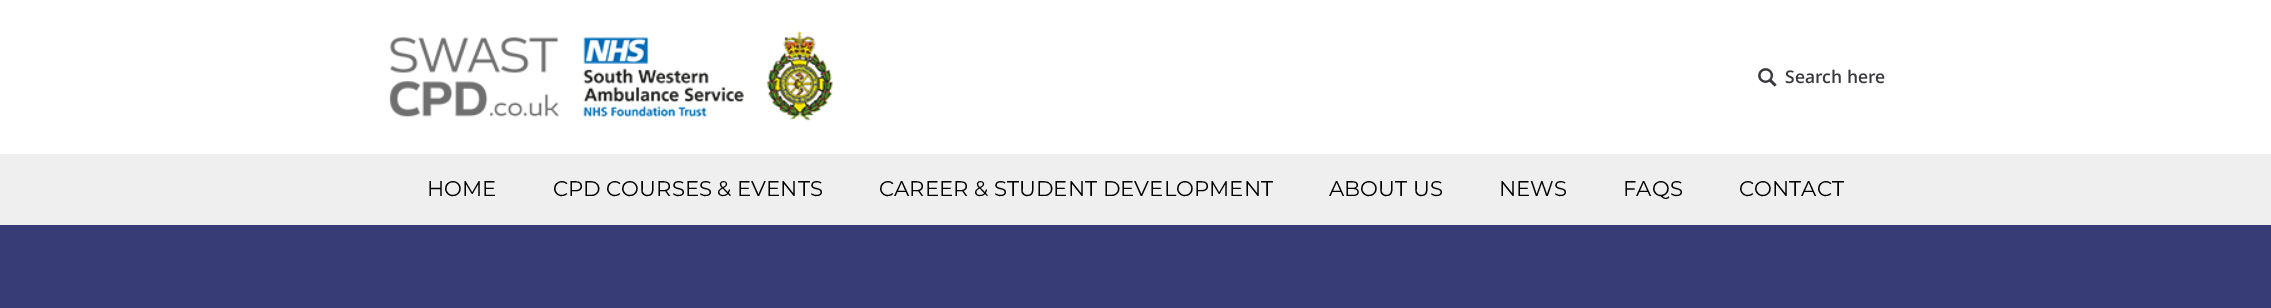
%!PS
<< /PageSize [2271 308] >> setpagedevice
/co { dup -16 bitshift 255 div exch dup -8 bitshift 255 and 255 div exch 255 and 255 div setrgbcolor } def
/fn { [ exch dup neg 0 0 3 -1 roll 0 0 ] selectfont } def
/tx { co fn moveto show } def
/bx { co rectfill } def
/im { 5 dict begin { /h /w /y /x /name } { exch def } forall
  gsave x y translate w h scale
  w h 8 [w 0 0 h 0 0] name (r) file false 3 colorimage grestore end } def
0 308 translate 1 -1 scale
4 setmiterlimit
0 0 2271 308 16#FFFFFF bx
(media/1.raw) 389 31 444 90 im
(media/2.raw) 1758 68 19 19 im
0 154 2271 71 16#EFEFEF bx
0 225 2271 83 16#373C77 bx
(Search here) 1785 83 /OpenSans-SemiBold 17.5 16#393940 tx
(HOME) 427 196 /Montserrat-Regular 21.25 16#000000 tx
(CPD COURSES & EVENTS) 553 196 /Montserrat-Regular 21.25 16#000000 tx
(CAREER & STUDENT DEVELOPMENT) 879 196 /Montserrat-Regular 21.25 16#000000 tx
(ABOUT US) 1329 196 /Montserrat-Regular 21.25 16#000000 tx
(NEWS) 1499 196 /Montserrat-Regular 21.25 16#000000 tx
(FAQS) 1623 196 /Montserrat-Regular 21.25 16#000000 tx
(CONTACT) 1739 196 /Montserrat-Regular 21.25 16#000000 tx
showpage
